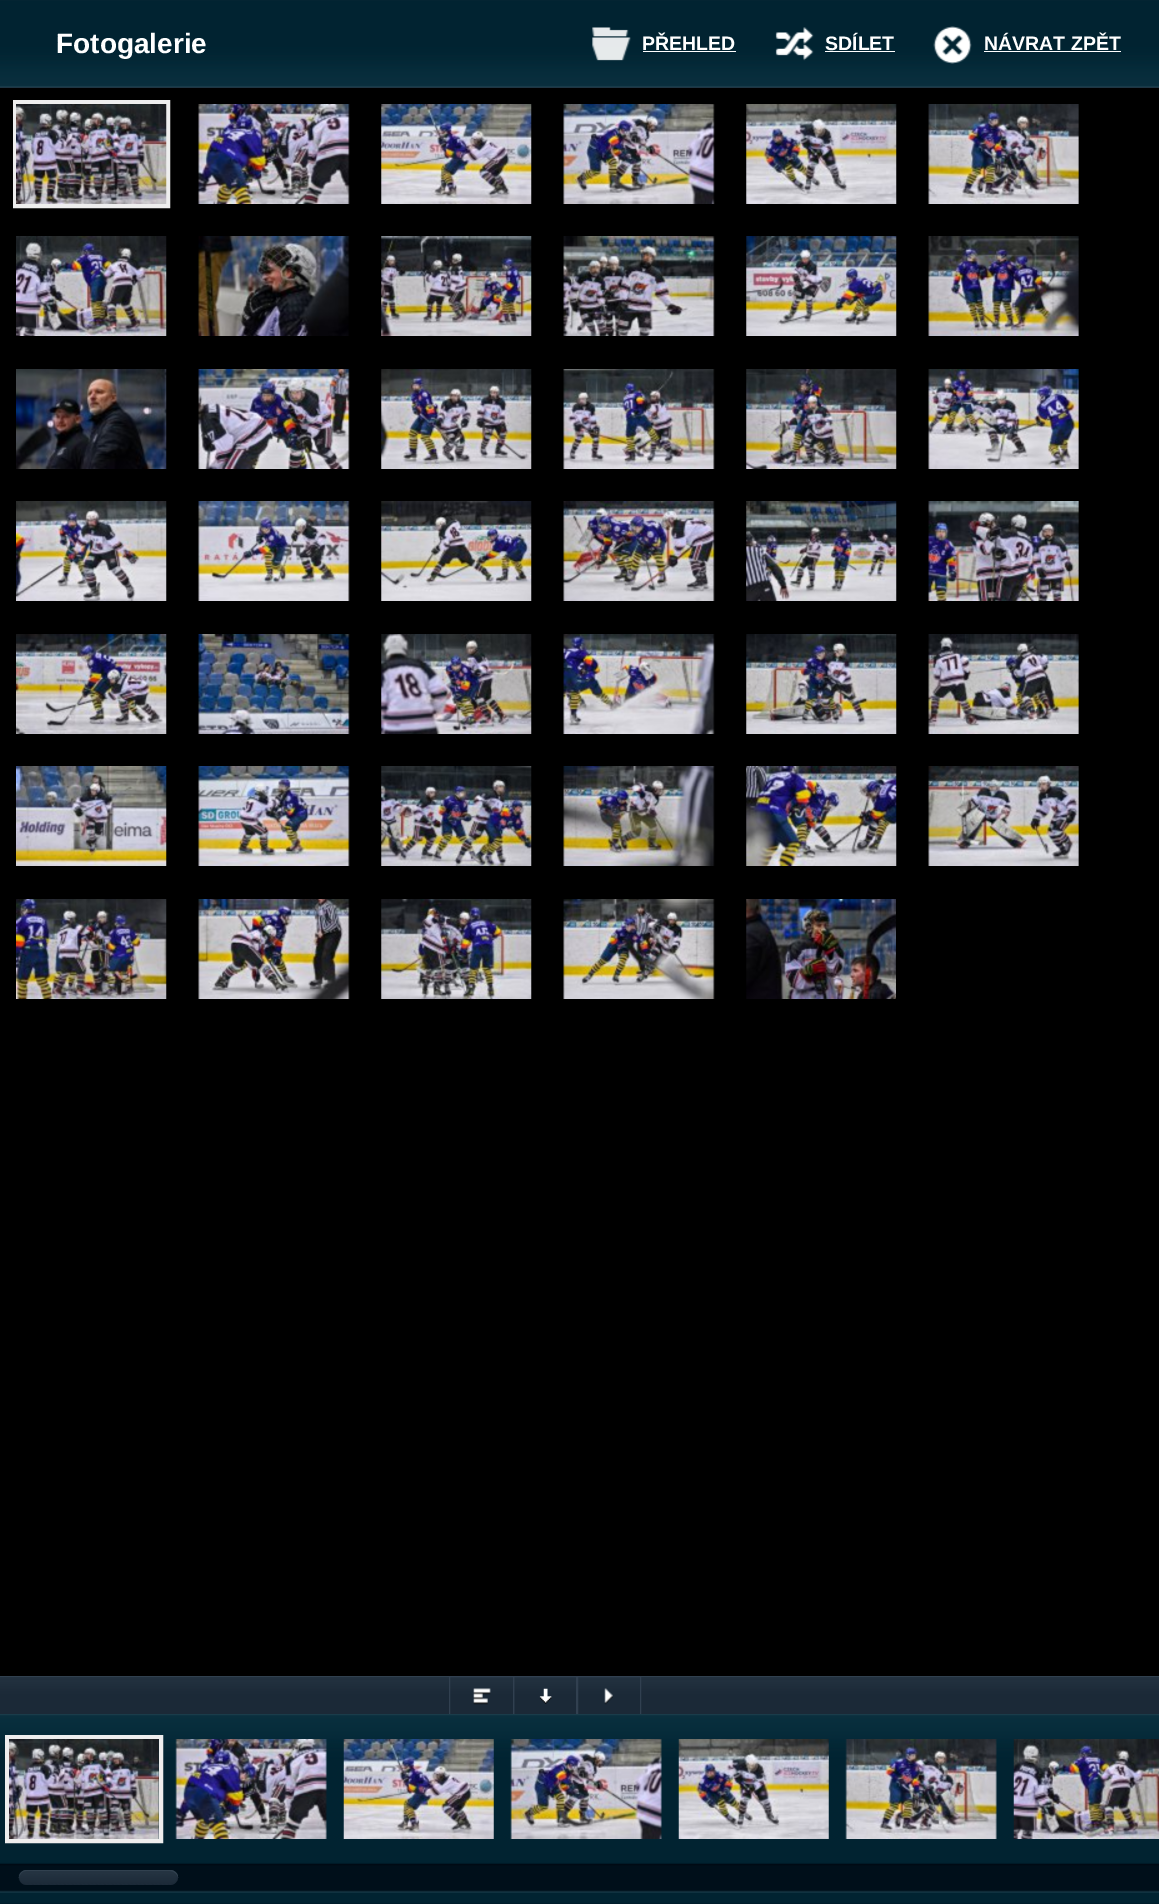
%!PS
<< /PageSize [1159 1904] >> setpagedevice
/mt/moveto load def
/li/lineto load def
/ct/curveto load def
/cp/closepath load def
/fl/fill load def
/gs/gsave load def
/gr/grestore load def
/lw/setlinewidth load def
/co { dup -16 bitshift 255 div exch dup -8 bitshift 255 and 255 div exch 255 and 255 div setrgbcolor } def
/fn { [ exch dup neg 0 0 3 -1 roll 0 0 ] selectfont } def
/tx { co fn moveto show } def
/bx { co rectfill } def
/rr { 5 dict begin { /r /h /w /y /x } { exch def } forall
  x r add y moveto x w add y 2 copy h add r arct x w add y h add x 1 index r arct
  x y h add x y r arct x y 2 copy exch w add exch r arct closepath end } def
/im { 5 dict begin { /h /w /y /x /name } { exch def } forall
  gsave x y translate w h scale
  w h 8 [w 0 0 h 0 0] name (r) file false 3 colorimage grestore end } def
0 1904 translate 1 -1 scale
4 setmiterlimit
0 0 1159 1904 16#000000 bx
0 0 1159 88 16#22313F bx
(media/1.raw) 0 0 1159 88 im
(media/2.raw) 592 27 39 34 im
643 51 93 1 16#FFFFFF bx
(media/3.raw) 775 27 39 34 im
825 51 70 1 16#FFFFFF bx
(media/4.raw) 933 26 39 38 im
984 51 137 1 16#FFFFFF bx
16#EEEEEE co
4 lw
15 102 153 104 rectstroke
(media/5.raw) 16 104 151 100 im
(media/6.raw) 198 104 152 100 im
(media/7.raw) 381 104 151 100 im
(media/8.raw) 563 104 152 100 im
(media/9.raw) 746 104 151 100 im
(media/10.raw) 928 104 151 100 im
(media/11.raw) 16 236 151 100 im
(media/12.raw) 198 236 152 100 im
(media/13.raw) 381 236 151 100 im
(media/14.raw) 563 236 152 100 im
(media/15.raw) 746 236 151 100 im
(media/16.raw) 928 236 151 100 im
(media/17.raw) 16 369 151 100 im
(media/18.raw) 198 369 152 100 im
(media/19.raw) 381 369 151 100 im
(media/20.raw) 563 369 152 100 im
(media/21.raw) 746 369 151 100 im
(media/22.raw) 928 369 151 100 im
(media/23.raw) 16 501 151 100 im
(media/24.raw) 198 501 152 100 im
(media/25.raw) 381 501 151 100 im
(media/26.raw) 563 501 152 100 im
(media/27.raw) 746 501 151 100 im
(media/28.raw) 928 501 151 100 im
(media/29.raw) 16 634 151 100 im
(media/30.raw) 198 634 152 100 im
(media/31.raw) 381 634 151 100 im
(media/32.raw) 563 634 152 100 im
(media/33.raw) 746 634 151 100 im
(media/34.raw) 928 634 151 100 im
(media/35.raw) 16 766 151 100 im
(media/36.raw) 198 766 152 100 im
(media/37.raw) 381 766 151 100 im
(media/38.raw) 563 766 152 100 im
(media/39.raw) 746 766 151 100 im
(media/40.raw) 928 766 151 100 im
(media/41.raw) 16 899 151 100 im
(media/42.raw) 198 899 152 100 im
(media/43.raw) 381 899 151 100 im
(media/44.raw) 563 899 152 100 im
(media/45.raw) 746 899 150 100 im
gs 0 1677 mt 1159 1677 li 1159 1714 li 0 1714 li cp clip newpath
<< /ShadingType 2 /ColorSpace /DeviceRGB /Coords [580 1714 580 1676] /Extend [true true] /Function << /FunctionType 3 /Domain [0 1] /Functions [<< /FunctionType 2 /Domain [0 1] /C0 [.106 .161 .216] /C1 [.106 .161 .216] /N 1 >> << /FunctionType 2 /Domain [0 1] /C0 [.106 .161 .216] /C1 [.137 .2 .255] /N 1 >>] /Bounds [.5] /Encode [0 1 0 1] >> >> shfill gr
0 1676 1159 1 16#31414F bx
16#314050 co
1 lw
449.5 1676.5 64 39 rectstroke
(media/46.raw) 473 1688 18 17 im
513.5 1676.5 64 39 rectstroke
(media/47.raw) 539 1688 13 16 im
576.5 1676.5 64 39 rectstroke
(media/48.raw) 604 1688 9 17 im
(media/49.raw) 0 1714 1159 190 im
16#EEEEEE co
4 lw
7 1737 154 104 rectstroke
(media/50.raw) 9 1739 150 100 im
(media/51.raw) 175 1739 152 100 im
(media/52.raw) 343 1739 151 100 im
(media/53.raw) 510 1739 152 100 im
(media/54.raw) 678 1739 151 100 im
(media/55.raw) 845 1739 152 100 im
(media/56.raw) 1013 1739 146 100 im
16#1B2937 co
19 1870 159 15 7.5 rr fl
(media/57.raw) 18 1870 159 15 im
gs
0 1870 196 15 rectclip
16#31414F co
26 1871 mt 170 1871 li 174 1871 178 1875 178 1878 ct 179 1864 148 1870 146 1870 ct 50 1870 li 49 1870 18 1864 19 1878 ct 19 1875 22 1871 26 1871 ct cp fl
gr
(Fotogalerie) 56 53 /LiberationSans-Bold 28 16#FFFFFF tx
(PŘEHLED) 642 50 /LiberationSans-Bold 19.5 16#FFFFFF tx
(SDÍLET) 825 50 /LiberationSans-Bold 19.5 16#FFFFFF tx
(NÁVRAT ZPĚT) 984 50 /LiberationSans-Bold 19.5 16#FFFFFF tx
showpage
